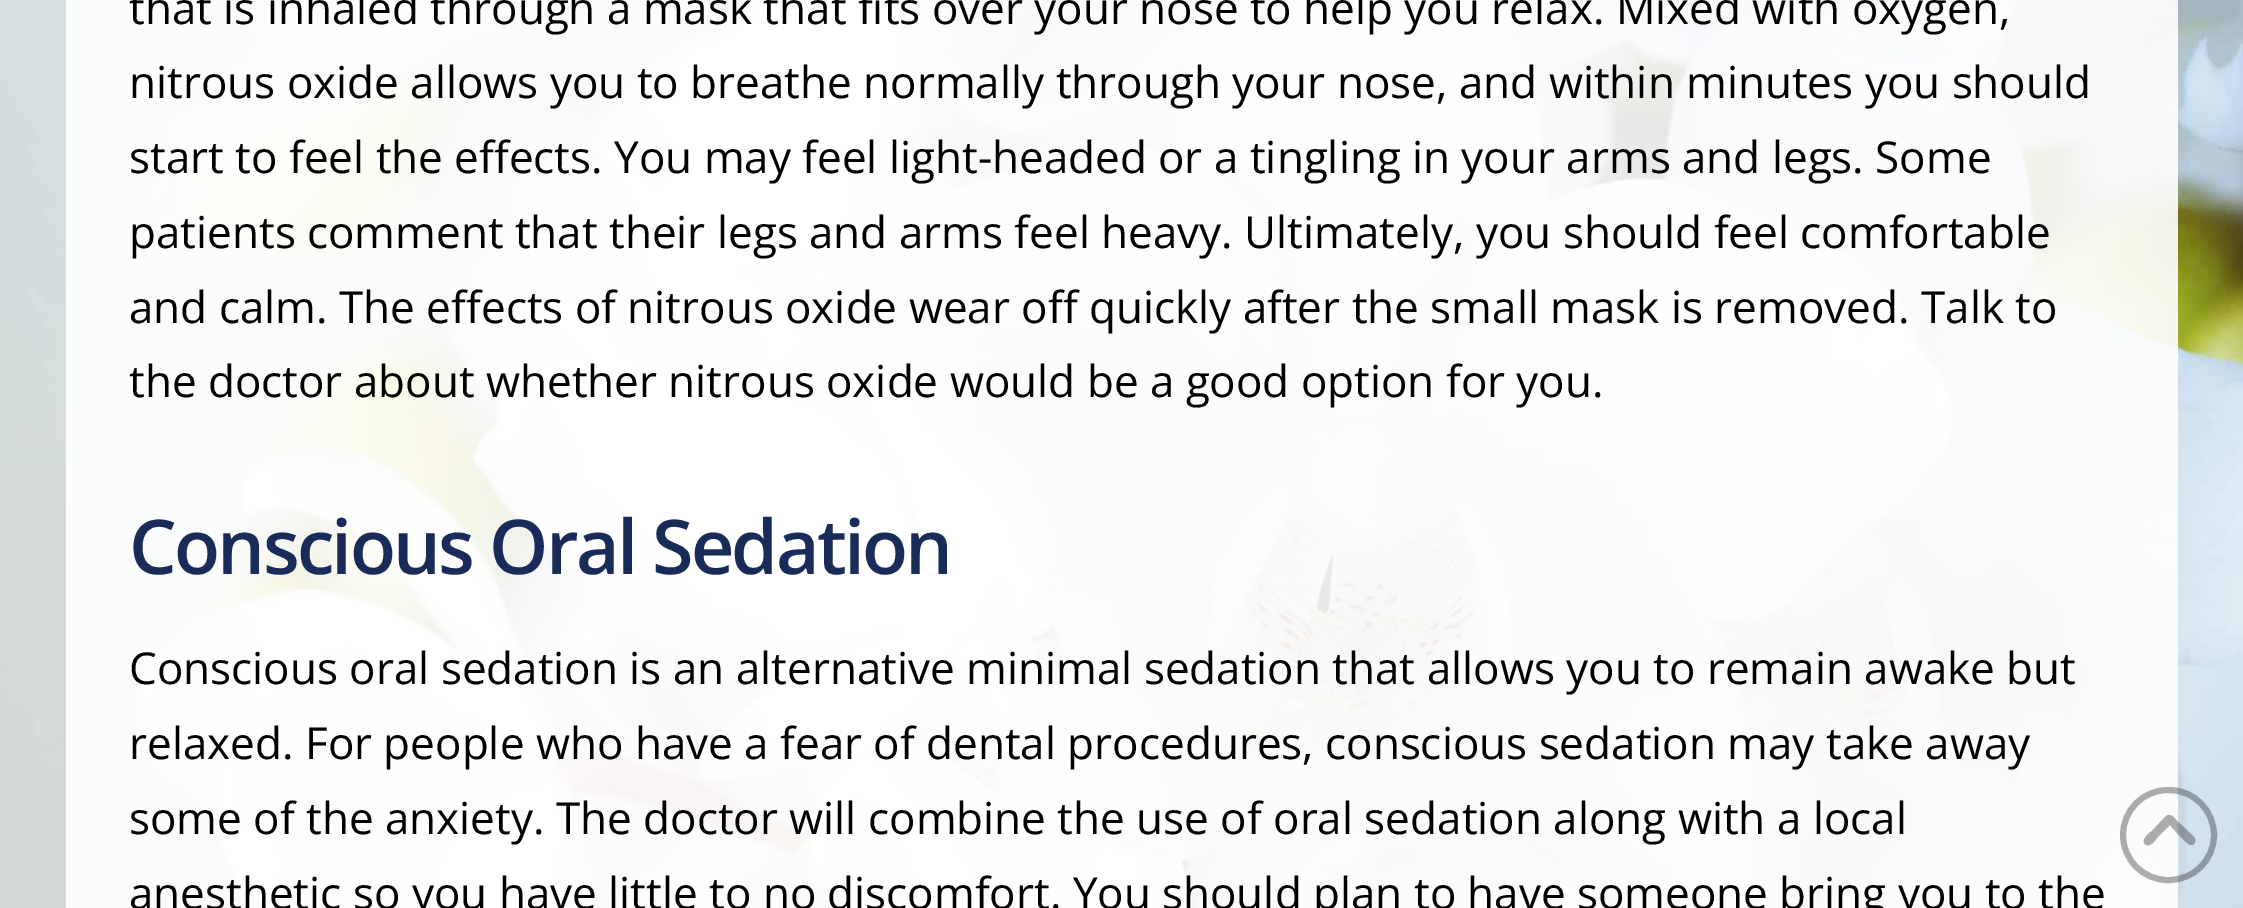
%!PS
<< /PageSize [2243 908] /PageUsesTransparency true >> setpagedevice
/mt/moveto load def
/li/lineto load def
/ct/curveto load def
/cp/closepath load def
/fl/fill load def
/st/stroke load def
/lw/setlinewidth load def
/co { dup -16 bitshift 255 div exch dup -8 bitshift 255 and 255 div exch 255 and 255 div setrgbcolor } def
/fn { [ exch dup neg 0 0 3 -1 roll 0 0 ] selectfont } def
/tx { co fn moveto show } def
/bx { co rectfill } def
/al { dup .setfillconstantalpha .setstrokeconstantalpha } def
/rr { 5 dict begin { /r /h /w /y /x } { exch def } forall
  x r add y moveto x w add y 2 copy h add r arct x w add y h add x 1 index r arct
  x y h add x y r arct x y 2 copy exch w add exch r arct closepath end } def
/im { 5 dict begin { /h /w /y /x /name } { exch def } forall
  gsave x y translate w h scale
  w h 8 [w 0 0 h 0 0] name (r) file false 3 colorimage grestore end } def
0 .pushpdf14devicefilter
0 908 translate 1 -1 scale
4 setmiterlimit
0 0 2243 908 16#FFFFFF bx
(media/1.raw) 0 0 2243 908 im
0.38 al
16#272727 co
6 lw
2123 790 91 90 45 rr st
2166 816 mt 2170 813 2174 817 2176 820 ct 2191 834 li 2193 836 2198 840 2194 844 ct 2193 845 2192 845 2190 845 ct 2187 844 2173 829 2170 825 ct 2157 838 li 2155 840 2151 847 2146 845 ct 2139 841 2150 832 2152 831 ct cp fl
1 al
(that is inhaled through a mask that fits over your nose to help you relax. Mixed with oxygen,) 129 24 /OpenSans-Regular 44 16#000000 tx
(nitrous oxide allows you to breathe normally through your nose, and within minutes you should) 129 98 /OpenSans-Regular 44 16#000000 tx
(start to feel the effects. You may feel light-headed or a tingling in your arms and legs. Some) 129 173 /OpenSans-Regular 44 16#000000 tx
(patients comment that their legs and arms feel heavy. Ultimately, you should feel comfortable) 129 248 /OpenSans-Regular 44 16#000000 tx
(and calm. The effects of nitrous oxide wear off quickly after the small mask is removed. Talk to) 129 323 /OpenSans-Regular 44 16#000000 tx
(the doctor about whether nitrous oxide would be a good option for you.) 129 397 /OpenSans-Regular 44 16#000000 tx
/OpenSans-SemiBold 75.5 fn
16#192B58 co
129 574 mt -2.75 0 (Conscious Oral Sedation) ashow
(Conscious oral sedation is an alternative minimal sedation that allows you to remain awake but) 129 684 /OpenSans-Regular 44 16#000000 tx
(relaxed. For people who have a fear of dental procedures, conscious sedation may take away) 129 759 /OpenSans-Regular 44 16#000000 tx
(some of the anxiety. The doctor will combine the use of oral sedation along with a local) 129 834 /OpenSans-Regular 44 16#000000 tx
(anesthetic so you have little to no discomfort. You should plan to have someone bring you to the) 129 909 /OpenSans-Regular 44 16#000000 tx
.poppdf14devicefilter showpage
